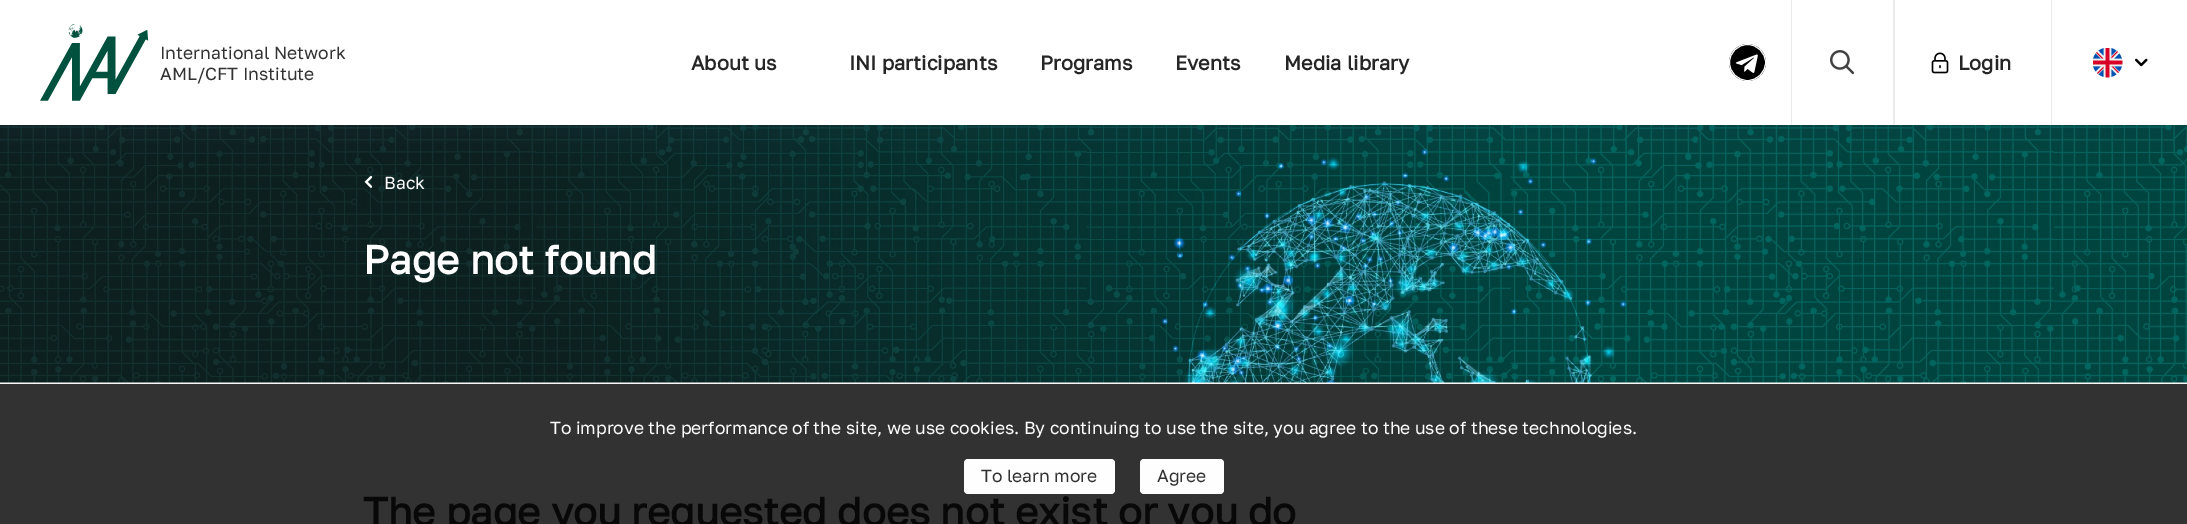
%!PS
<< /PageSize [2187 524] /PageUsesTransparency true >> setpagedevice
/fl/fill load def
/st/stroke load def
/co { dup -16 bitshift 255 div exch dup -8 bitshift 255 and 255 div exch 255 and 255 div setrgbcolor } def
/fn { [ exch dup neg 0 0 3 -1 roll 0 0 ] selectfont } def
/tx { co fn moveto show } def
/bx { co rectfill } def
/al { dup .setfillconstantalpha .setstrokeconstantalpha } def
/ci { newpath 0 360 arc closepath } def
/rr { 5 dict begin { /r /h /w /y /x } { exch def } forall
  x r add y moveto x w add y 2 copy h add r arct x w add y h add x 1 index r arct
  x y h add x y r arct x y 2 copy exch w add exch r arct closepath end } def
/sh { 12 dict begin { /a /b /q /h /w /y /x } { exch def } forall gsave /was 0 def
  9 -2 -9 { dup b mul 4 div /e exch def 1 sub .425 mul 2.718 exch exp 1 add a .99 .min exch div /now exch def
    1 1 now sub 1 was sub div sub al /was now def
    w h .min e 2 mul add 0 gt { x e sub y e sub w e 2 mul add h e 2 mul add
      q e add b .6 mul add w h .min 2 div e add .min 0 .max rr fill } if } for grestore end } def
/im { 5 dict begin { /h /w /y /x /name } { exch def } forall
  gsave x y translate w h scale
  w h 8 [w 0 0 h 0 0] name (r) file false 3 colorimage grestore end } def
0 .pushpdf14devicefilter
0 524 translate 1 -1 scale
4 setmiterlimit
0 0 2187 524 16#FFFFFF bx
(media/7.raw) 0 125 2187 258 im
(media/8.raw) 364 175 9 13 im
16#2D4958 co
0 15 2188 125 0 15 .15 sh
0 0 2187 125 16#FFFFFF bx
(media/1.raw) 40 24 109 77 im
(media/2.raw) 1729 44 37 37 im
1747.5 62.5 18 ci st
(media/3.raw) 1830 50 25 25 im
1893 0 2 125 16#EBEBEB bx
1791 0 1 125 16#EBEBEB bx
(media/4.raw) 1931 52 18 22 im
2051 0 1 125 16#EBEBEB bx
(media/5.raw) 2093 48 30 30 im
(media/6.raw) 2135 58 13 9 im
0 384 2187 140 16#323232 bx
16#FEFEFE co
964 459 151 35 4 rr fl
1140 459 84 35 4 rr fl
0 383 2187 1 16#F8F8F8 bx
(International Network) 160 59 /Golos-Regular 17.5 16#333232 tx
(AML/CFT Institute) 160 80 /Golos-Regular 17.5 16#333232 tx
(About us) 691 70 /Golos-Bold 20 16#262626 tx
(INI participants) 849 70 /Golos-Bold 20 16#262626 tx
(Programs) 1040 70 /Golos-Bold 20 16#262626 tx
(Events) 1175 70 /Golos-Bold 20 16#262626 tx
(Media library) 1284 70 /Golos-Bold 20 16#262626 tx
(Login) 1958 70 /Golos-Bold 20 16#262626 tx
(Back) 384 189 /Golos-Regular 17.5 16#FFFFFF tx
(Page not found) 363 274 /Golos-Bold 40 16#FFFFFF tx
(To improve the performance of the site, we use cookies. By continuing to use the site, you agree to the use of these technologies.) 550 434 /Golos-Regular 17.5 16#FFFFFF tx
(To learn more) 981 482 /Golos-Regular 17.5 16#333232 tx
(Agree) 1157 482 /Golos-Regular 17.5 16#333232 tx
(The page you requested does not exist or you do) 363 526 /Golos-Bold 40 16#080808 tx
.poppdf14devicefilter showpage
